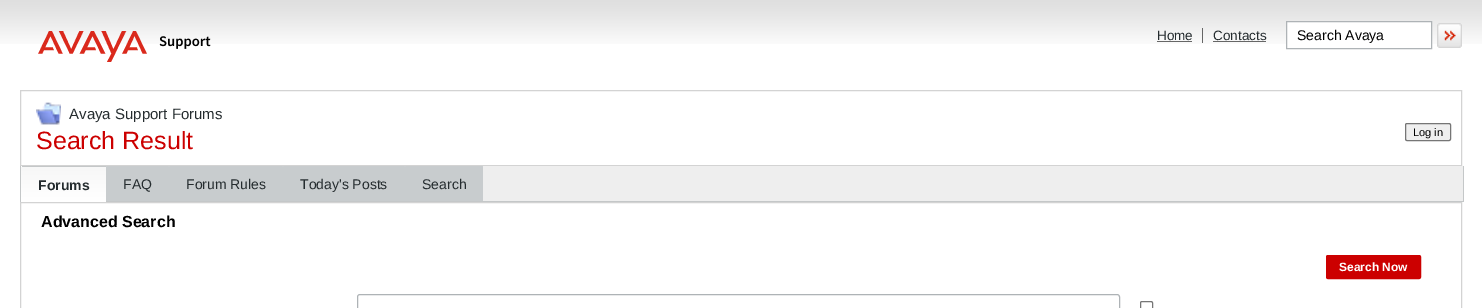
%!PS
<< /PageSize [1482 308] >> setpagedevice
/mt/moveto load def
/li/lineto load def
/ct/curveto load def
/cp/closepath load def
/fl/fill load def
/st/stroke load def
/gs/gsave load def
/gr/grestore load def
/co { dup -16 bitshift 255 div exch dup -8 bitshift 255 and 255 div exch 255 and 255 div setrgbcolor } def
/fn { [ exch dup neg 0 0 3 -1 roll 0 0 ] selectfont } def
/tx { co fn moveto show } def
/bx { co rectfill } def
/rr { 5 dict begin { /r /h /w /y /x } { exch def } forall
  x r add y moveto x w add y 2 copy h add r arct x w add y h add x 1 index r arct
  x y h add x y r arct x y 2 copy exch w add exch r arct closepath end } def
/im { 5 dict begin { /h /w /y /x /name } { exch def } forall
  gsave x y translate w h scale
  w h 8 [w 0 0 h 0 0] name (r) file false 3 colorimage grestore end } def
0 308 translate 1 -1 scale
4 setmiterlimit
0 0 1482 308 16#FFFFFF bx
(media/1.raw) 0 0 1482 44 im
(media/2.raw) 38 31 173 31 im
1157 41 35 1 16#666666 bx
1202 28 1 15 16#666666 bx
1213 41 53 1 16#666666 bx
1287 22 144 22 16#FFFFFF bx
16#AEB3B6 co
1286.5 21.5 145 27 rectstroke
(media/3.raw) 1437 23 25 25 im
16#D3D3D3 co
20.5 90.5 1441 75 rectstroke
(media/4.raw) 36 102 25 23 im
16#EFEFEF co
1405.5 123.5 45 17 1.5 rr gs fl gr
16#767676 co
st
21 166 1442 35 16#EEEEEE bx
1463 166 1 36 16#C4C7C8 bx
106 201 1358 1 16#C4C7C8 bx
20 166 1 36 16#C4C7C8 bx
gs 22 166 mt 105 166 li 105.5 166 106 166.5 106 167 ct 21 167 li 21 166.5 21.5 166 22 166 ct cp clip newpath
<< /ShadingType 2 /ColorSpace /DeviceRGB /Coords [64 132 64 167] /Extend [true true] /Function << /FunctionType 2 /Domain [0 1] /C0 [.969 .969 .969] /C1 [1 1 1] /N 1 >> >> shfill gr
gs 21 167 mt 106 167 li 106 201 li 21 201 li cp clip newpath
<< /ShadingType 2 /ColorSpace /DeviceRGB /Coords [64 167 64 202] /Extend [true true] /Function << /FunctionType 2 /Domain [0 1] /C0 [.969 .969 .969] /C1 [1 1 1] /N 1 >> >> shfill gr
22 166 84 1 16#C4C7C8 bx
16#C8CCCE co
107 166 mt 168 166 li 168.5 166 169 166.5 169 167 ct 169 201 li 106 201 li 106 167 li 106 166.5 106.5 166 107 166 ct cp fl
170 166 mt 282 166 li 282.5 166 283 166.5 283 167 ct 283 201 li 169 201 li 169 167 li 169 166.5 169.5 166 170 166 ct cp fl
284 166 mt 404 166 li 404.5 166 405 166.5 405 167 ct 405 201 li 283 201 li 283 167 li 283 166.5 283.5 166 284 166 ct cp fl
406 166 mt 482 166 li 482.5 166 483 166.5 483 167 ct 483 201 li 405 201 li 405 167 li 405 166.5 405.5 166 406 166 ct cp fl
16#D3D3D3 co
20.5 202.5 1441 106 rectstroke
16#CC0000 co
1326.5 255.5 94 23 1.5 rr gs fl gr
st
16#AEB3B6 co
357.5 294.5 762 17 2.5 rr st
16#767676 co
1140.5 301.5 12 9 1.5 rr st
(Home) 1157 40 /LiberationSans-Regular 13.5 16#252C2F tx
(Contacts) 1213 40 /LiberationSans-Regular 13.5 16#252C2F tx
(Search Avaya) 1297 40 /LiberationSans-Regular 14 16#000000 tx
(Avaya Support Forums) 69 119 /LiberationSans-Regular 15 16#252C2F tx
(Search Result) 36 149 /LiberationSans-Regular 25 16#CC0000 tx
(Log in) 1413 136 /LiberationSans-Regular 11 16#000000 tx
(Forums) 38 190 /LiberationSans-Bold 14 16#252C2F tx
(FAQ) 123 189 /LiberationSans-Regular 14 16#252C2F tx
(Forum Rules) 186 189 /LiberationSans-Regular 14 16#252C2F tx
(Today's Posts) 300 189 /LiberationSans-Regular 14 16#252C2F tx
(Search) 422 189 /LiberationSans-Regular 14 16#252C2F tx
(Advanced Search) 41 227 /LiberationSans-Bold 16 16#000000 tx
(Search Now) 1339 271 /LiberationSans-Bold 12 16#FFFFFF tx
showpage
